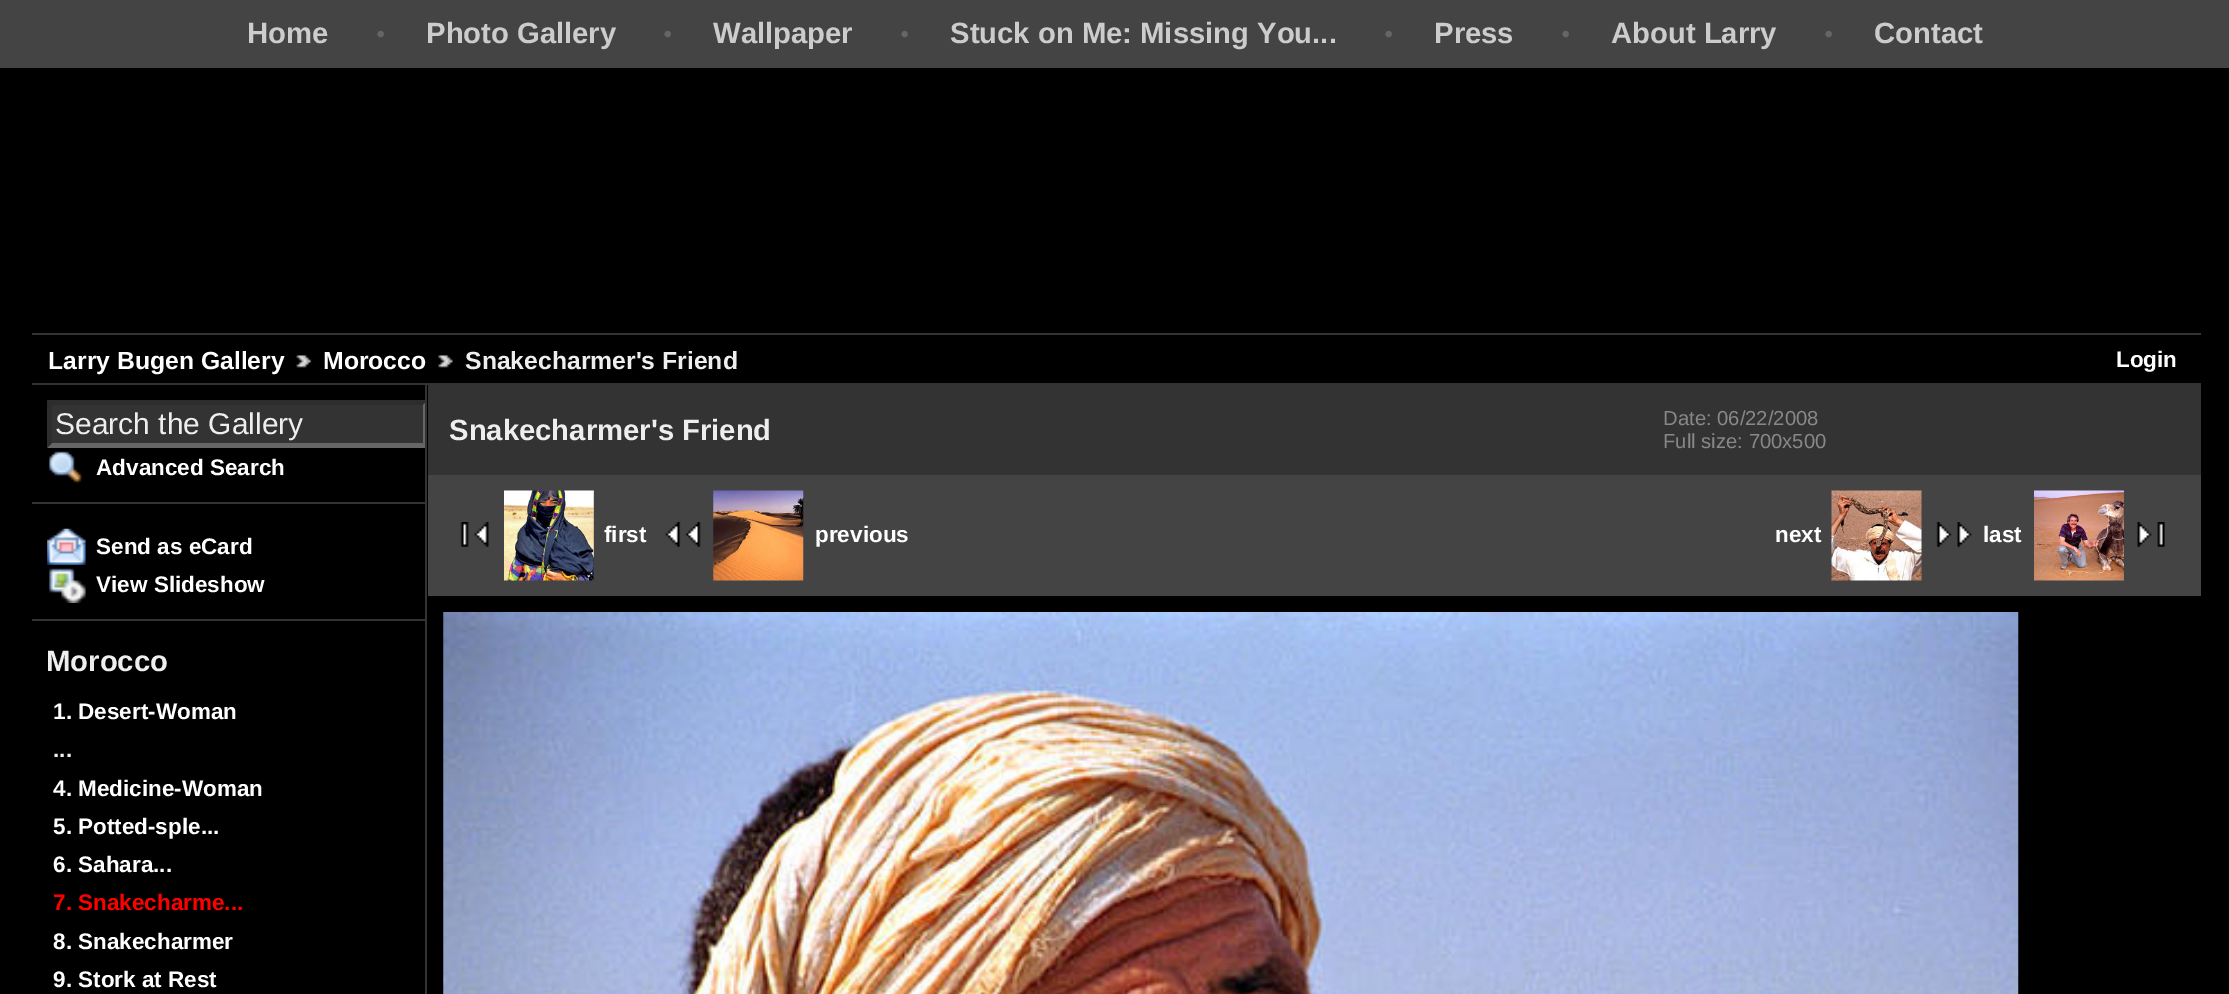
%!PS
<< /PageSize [2229 994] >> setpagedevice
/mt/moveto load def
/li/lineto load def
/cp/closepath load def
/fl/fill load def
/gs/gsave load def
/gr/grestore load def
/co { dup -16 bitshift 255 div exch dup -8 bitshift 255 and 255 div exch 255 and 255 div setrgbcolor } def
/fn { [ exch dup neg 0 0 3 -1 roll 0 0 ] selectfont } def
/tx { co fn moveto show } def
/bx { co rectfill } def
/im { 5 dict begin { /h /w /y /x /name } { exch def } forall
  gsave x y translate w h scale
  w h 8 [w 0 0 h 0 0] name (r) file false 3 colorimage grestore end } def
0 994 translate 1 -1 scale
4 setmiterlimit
0 0 2229 994 16#000000 bx
0 0 2229 68 16#444444 bx
32 333 2169 2 16#333333 bx
32 383 2169 2 16#333333 bx
(media/1.raw) 296 355 16 13 im
(media/2.raw) 438 355 15 13 im
425 385 2 609 16#333333 bx
32 502 393 2 16#333333 bx
47 401 378 47 16#333333 bx
gs
32 385 393 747 rectclip
16#2D2D2D co
47 400 mt 428 400 li 423 405 li 52 405 li cp fl
16#666666 co
428 400 mt 428 448 li 423 443 li 423 405 li cp fl
428 448 mt 47 448 li 52 443 li 423 443 li cp fl
gr
16#2D2D2D co
47 448 mt 47 400 li 52 405 li 52 443 li cp fl
(media/3.raw) 49 451 33 33 im
32 619 393 2 16#333333 bx
(media/4.raw) 47 528 39 37 im
(media/5.raw) 49 568 37 35 im
428 385 1773 90 16#333333 bx
428 475 1773 121 16#444444 bx
(media/6.raw) 460 522 29 25 im
(media/7.raw) 504 490 90 91 im
(media/8.raw) 665 522 36 25 im
(media/9.raw) 713 490 91 91 im
(media/10.raw) 1831 490 91 91 im
(media/11.raw) 1936 522 36 25 im
(media/12.raw) 2034 490 90 91 im
(media/13.raw) 2137 522 28 25 im
(media/14.raw) 443 612 1576 382 im
(Home) 247 43 /LiberationSans-Bold 29.25 16#CCCCCC tx
(•) 376 43 /LiberationSerif-Regular 27 16#666666 tx
(Photo Gallery) 426 43 /LiberationSans-Bold 29.25 16#CCCCCC tx
(•) 663 43 /LiberationSerif-Regular 27 16#666666 tx
(Wallpaper) 713 43 /LiberationSans-Bold 29.25 16#CCCCCC tx
(•) 900 43 /LiberationSerif-Regular 27 16#666666 tx
(Stuck on Me: Missing You...) 950 43 /LiberationSans-Bold 29.25 16#CCCCCC tx
(•) 1384 43 /LiberationSerif-Regular 27 16#666666 tx
(Press) 1434 43 /LiberationSans-Bold 29.25 16#CCCCCC tx
(•) 1561 43 /LiberationSerif-Regular 27 16#666666 tx
(About Larry) 1611 43 /LiberationSans-Bold 29.25 16#CCCCCC tx
(•) 1824 43 /LiberationSerif-Regular 27 16#666666 tx
(Contact) 1874 43 /LiberationSans-Bold 29.25 16#CCCCCC tx
(Larry Bugen Gallery) 48 369 /LiberationSans-Bold 24.75 16#FFFFFF tx
(Morocco) 323 369 /LiberationSans-Bold 24.75 16#FFFFFF tx
(Snakecharmer's Friend) 465 369 /LiberationSans-Bold 24.75 16#EEEEEE tx
(Login) 2116 367 /LiberationSans-Bold 22.5 16#FFFFFF tx
(Search the Gallery) 55 434 /LiberationSans-Regular 30 16#EEEEEE tx
(Advanced Search) 96 475 /LiberationSans-Bold 22.5 16#FFFFFF tx
(Send as eCard) 96 554 /LiberationSans-Bold 22.5 16#FFFFFF tx
(View Slideshow) 96 592 /LiberationSans-Bold 22.5 16#FFFFFF tx
(Morocco) 46 671 /LiberationSans-Bold 29.25 16#EEEEEE tx
(1. Desert-Woman) 53 719 /LiberationSans-Bold 22.5 16#FFFFFF tx
(...) 53 757 /LiberationSans-Bold 22.5 16#EEEEEE tx
(4. Medicine-Woman) 53 796 /LiberationSans-Bold 22.5 16#FFFFFF tx
(5. Potted-sple...) 53 834 /LiberationSans-Bold 22.5 16#FFFFFF tx
(6. Sahara...) 53 872 /LiberationSans-Bold 22.5 16#FFFFFF tx
(7. Snakecharme...) 53 910 /LiberationSans-Bold 22.5 16#FF0000 tx
(8. Snakecharmer) 53 949 /LiberationSans-Bold 22.5 16#FFFFFF tx
(9. Stork at Rest) 53 987 /LiberationSans-Bold 22.5 16#FFFFFF tx
(Snakecharmer's Friend) 449 440 /LiberationSans-Bold 29.25 16#EEEEEE tx
(Date: 06/22/2008) 1663 425 /LiberationSans-Regular 20.25 16#888888 tx
(Full size: 700x500) 1663 448 /LiberationSans-Regular 20.25 16#888888 tx
(first) 604 542 /LiberationSans-Bold 22.5 16#FFFFFF tx
(previous) 815 542 /LiberationSans-Bold 22.5 16#FFFFFF tx
(next) 1775 542 /LiberationSans-Bold 22.5 16#FFFFFF tx
(last) 1983 542 /LiberationSans-Bold 22.5 16#FFFFFF tx
showpage
